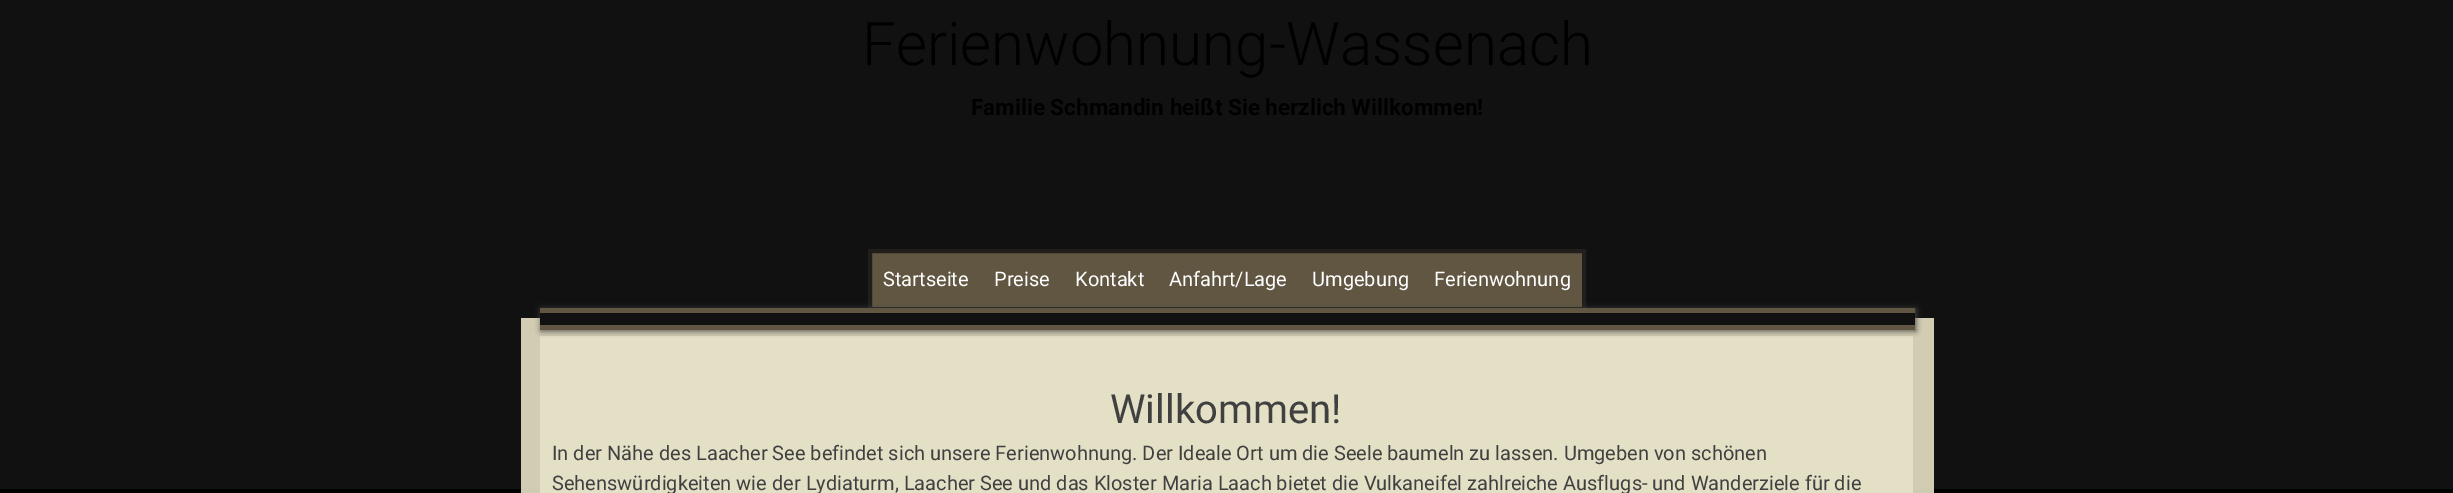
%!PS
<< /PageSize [2453 493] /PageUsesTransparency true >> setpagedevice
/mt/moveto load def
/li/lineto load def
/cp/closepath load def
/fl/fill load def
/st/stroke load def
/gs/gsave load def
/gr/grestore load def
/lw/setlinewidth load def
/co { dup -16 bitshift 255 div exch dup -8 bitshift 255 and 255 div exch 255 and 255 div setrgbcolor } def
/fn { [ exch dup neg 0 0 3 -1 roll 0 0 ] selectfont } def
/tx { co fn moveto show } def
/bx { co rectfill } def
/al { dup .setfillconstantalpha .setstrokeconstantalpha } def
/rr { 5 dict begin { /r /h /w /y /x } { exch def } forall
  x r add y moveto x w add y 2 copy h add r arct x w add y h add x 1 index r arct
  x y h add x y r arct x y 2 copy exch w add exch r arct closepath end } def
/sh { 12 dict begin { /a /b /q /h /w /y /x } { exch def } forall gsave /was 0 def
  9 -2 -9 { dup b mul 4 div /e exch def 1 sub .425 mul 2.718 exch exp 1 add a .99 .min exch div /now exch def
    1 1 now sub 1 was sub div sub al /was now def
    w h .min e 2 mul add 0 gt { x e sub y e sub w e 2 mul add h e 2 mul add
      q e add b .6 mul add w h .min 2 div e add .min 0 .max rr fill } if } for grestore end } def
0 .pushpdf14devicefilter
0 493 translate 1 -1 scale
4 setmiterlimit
0 0 2453 493 16#111111 bx
16#615642 co
870 251 mt 1584 251 li 1584 309 li 870 309 li cp gs fl gr
16#211E1B co
4 lw
st
521 318 1413 171 16#D1CCB2 bx
0 489 2453 4 16#000000 bx
521 489 1413 4 16#CFCBB0 bx
540 336 1373 157 16#E4E0C6 bx
16#4A4A4A co
541 309 1375 22 0 3 1 sh
540 313 1375 12 16#111111 bx
540 308 1375 5 16#615642 bx
540 325 1375 5 16#615642 bx
(Ferienwohnung-Wassenach) 862 65 /Roboto-Light 60 16#000000 tx
(Familie Schmandin heißt Sie herzlich Willkommen!) 971 115 /Roboto-Bold 22.5 16#000000 tx
(Startseite) 883 286 /Roboto-Regular 20 16#FFFFFF tx
(Preise) 994 286 /Roboto-Regular 20 16#FFFFFF tx
(Kontakt) 1075 286 /Roboto-Regular 20 16#FFFFFF tx
(Anfahrt/Lage) 1169 286 /Roboto-Regular 20 16#FFFFFF tx
(Umgebung) 1312 286 /Roboto-Regular 20 16#FFFFFF tx
(Ferienwohnung) 1434 286 /Roboto-Regular 20 16#FFFFFF tx
(Willkommen!) 1110 423 /Roboto-Regular 40 16#404040 tx
(In der Nähe des Laacher See befindet sich unsere Ferienwohnung. Der Ideale Ort um die Seele baumeln zu lassen. Umgeben von schönen) 552 460 /Roboto-Regular 20 16#404040 tx
(Sehenswürdigkeiten wie der Lydiaturm, Laacher See und das Kloster Maria Laach bietet die Vulkaneifel zahlreiche Ausflugs- und Wanderziele für die) 552 490 /Roboto-Regular 20 16#404040 tx
.poppdf14devicefilter showpage
